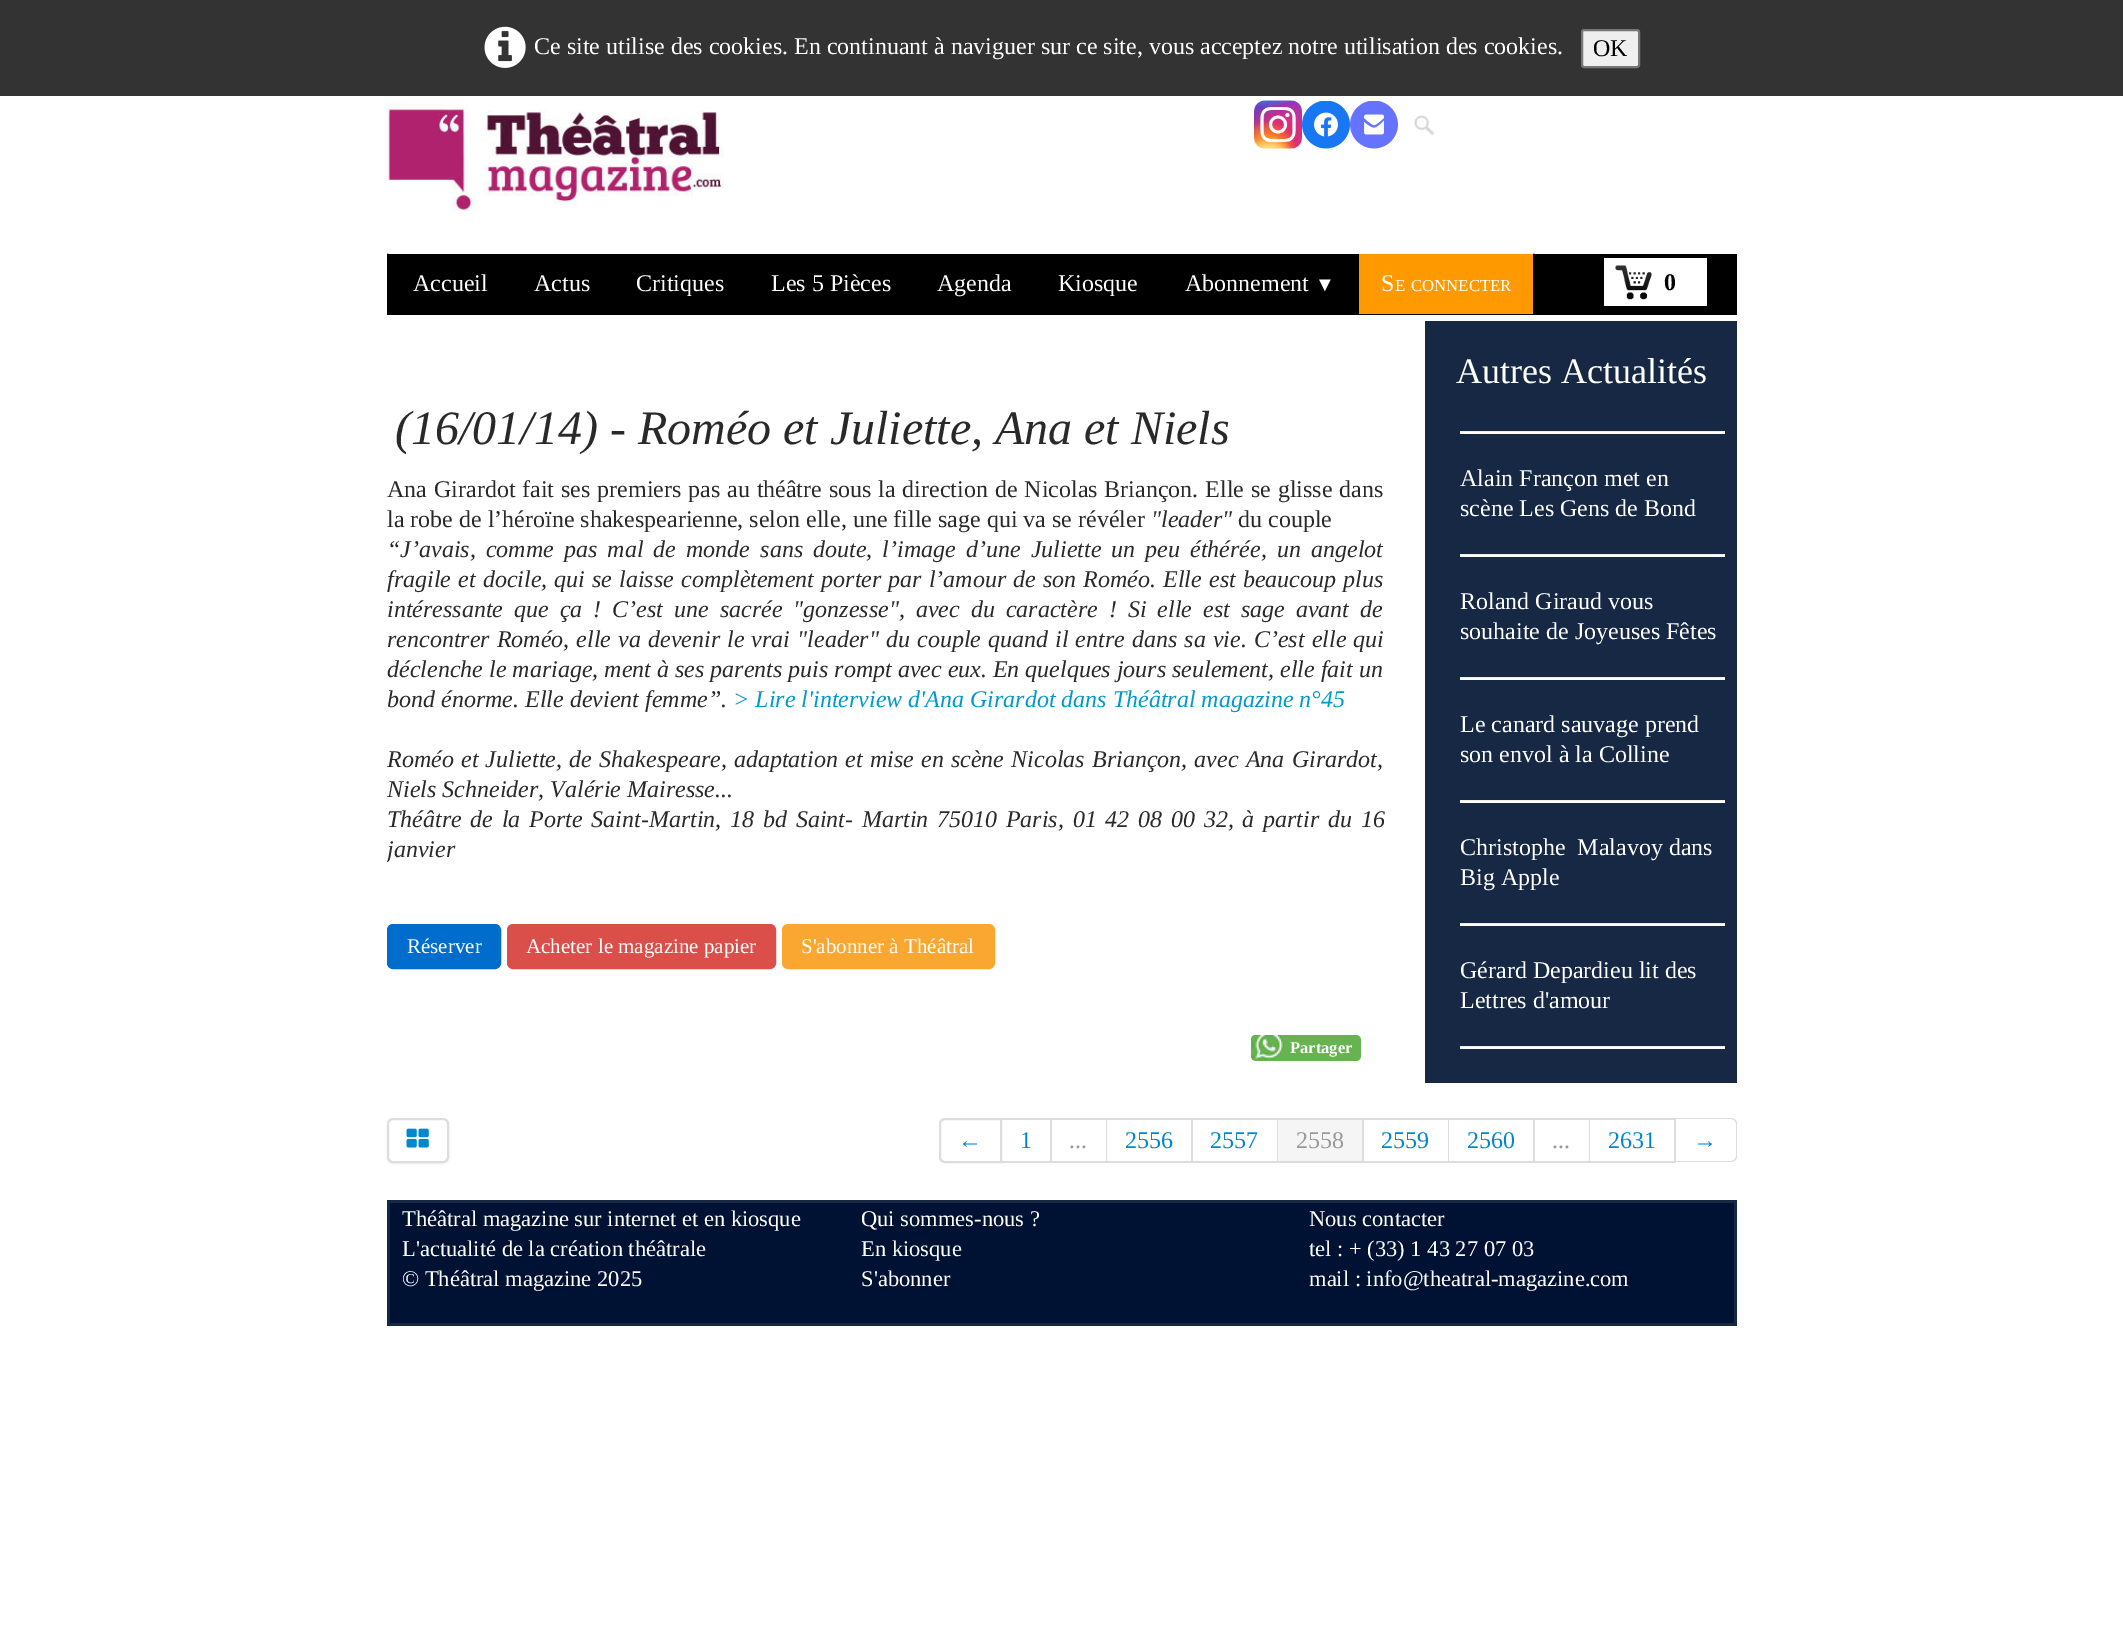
%!PS
<< /PageSize [2123 1630] /PageUsesTransparency true >> setpagedevice
/mt/moveto load def
/li/lineto load def
/ct/curveto load def
/cp/closepath load def
/fl/fill load def
/st/stroke load def
/gs/gsave load def
/gr/grestore load def
/lw/setlinewidth load def
/co { dup -16 bitshift 255 div exch dup -8 bitshift 255 and 255 div exch 255 and 255 div setrgbcolor } def
/fn { [ exch dup neg 0 0 3 -1 roll 0 0 ] selectfont } def
/tx { co fn moveto show } def
/bx { co rectfill } def
/al { dup .setfillconstantalpha .setstrokeconstantalpha } def
/rr { 5 dict begin { /r /h /w /y /x } { exch def } forall
  x r add y moveto x w add y 2 copy h add r arct x w add y h add x 1 index r arct
  x y h add x y r arct x y 2 copy exch w add exch r arct closepath end } def
/sh { 12 dict begin { /a /b /q /h /w /y /x } { exch def } forall gsave /was 0 def
  9 -2 -9 { dup b mul 4 div /e exch def 1 sub .425 mul 2.718 exch exp 1 add a .99 .min exch div /now exch def
    1 1 now sub 1 was sub div sub al /was now def
    w h .min e 2 mul add 0 gt { x e sub y e sub w e 2 mul add h e 2 mul add
      q e add b .6 mul add w h .min 2 div e add .min 0 .max rr fill } if } for grestore end } def
/im { 5 dict begin { /h /w /y /x /name } { exch def } forall
  gsave x y translate w h scale
  w h 8 [w 0 0 h 0 0] name (r) file false 3 colorimage grestore end } def
0 .pushpdf14devicefilter
0 1630 translate 1 -1 scale
4 setmiterlimit
0 0 2123 1630 16#FFFFFF bx
0 0 2123 96 16#333333 bx
(media/1.raw) 484 26 42 42 im
16#EFEFEF co
1582 30 57 37 2 rr gs fl gr
16#767676 co
2 lw
st
(media/2.raw) 384 103 340 109 im
(media/3.raw) 1254 100 48 49 im
(media/4.raw) 1302 101 48 48 im
(media/5.raw) 1350 101 48 48 im
(media/6.raw) 1414 115 21 21 im
387 254 1350 61 16#000000 bx
0.75 al
1534.5 253.5 mt 1534.5 255 li 1533 253.5 li cp fl
387 255 mt 387 253.5 li 388.5 253.5 li cp fl
1 al
1359 254 174 60 16#FF9900 bx
1604 258 103 48 16#FFFFFF bx
(media/7.raw) 1615 265 37 35 im
16#006DCC co
388 925 112 43 5 rr gs fl gr
st
16#DA4F49 co
508 925 267 43 5 rr gs fl gr
st
16#FAA732 co
783 925 211 43 5 rr gs fl gr
st
16#67B351 co
1251 1035 110 26 5 rr fl
(media/8.raw) 1251 1035 33 26 im
1425 321 312 762 16#172844 bx
1460 431 265 1 16#EEEEEE bx
1460 432 265 2 16#FFFFFF bx
1460 554 265 1 16#EEEEEE bx
1460 555 265 2 16#FFFFFF bx
1460 677 265 1 16#EEEEEE bx
1460 678 265 2 16#FFFFFF bx
1460 800 265 1 16#EEEEEE bx
1460 801 265 2 16#FFFFFF bx
1460 923 265 1 16#EEEEEE bx
1460 924 265 2 16#FFFFFF bx
1460 1046 265 1 16#EEEEEE bx
1460 1047 265 2 16#FFFFFF bx
16#000000 co
387 1119 62 45 6 1.5 .05 sh
16#FFFFFF co
388 1119 60 43 5 rr gs fl gr
16#DDDDDD co
st
(media/9.raw) 406 1128 23 20 im
945 1119 mt 1001 1119 li 1001 1162 li 945 1162 li 942 1162 940 1160 940 1157 ct 940 1124 li 940 1121 942 1119 945 1119 ct cp st
1002 1118 674 2 16#DDDDDD bx
1050 1118 2 45 16#DDDDDD bx
1002 1161 50 2 16#DDDDDD bx
1106 1118 1 45 16#DDDDDD bx
1052 1161 55 2 16#DDDDDD bx
1191 1118 2 45 16#DDDDDD bx
1107 1161 86 2 16#DDDDDD bx
1277 1118 1 45 16#DDDDDD bx
1193 1161 85 2 16#DDDDDD bx
1278 1120 84 41 16#F5F5F5 bx
1362 1118 2 45 16#DDDDDD bx
1278 1161 86 2 16#DDDDDD bx
1448 1118 1 45 16#DDDDDD bx
1364 1161 85 2 16#DDDDDD bx
1533 1118 2 45 16#DDDDDD bx
1449 1161 86 2 16#DDDDDD bx
1589 1118 1 45 16#DDDDDD bx
1535 1161 55 2 16#DDDDDD bx
1674 1118 2 45 16#DDDDDD bx
1590 1161 86 2 16#DDDDDD bx
1676 1118 mt 1731 1118 li 1734 1118 1737 1120 1737 1124 ct 1737 1156 li 1737 1160 1734 1162 1731 1162 ct 1676 1162 li cp 1676 1119 mt 1731 1119 li 1733 1119 1736 1121 1736 1124 ct 1736 1156 li 1736 1159 1733 1161 1731 1161 ct 1676 1161 li cp eofill
387 1200 1350 126 16#172844 bx
390 1203 1344 120 16#001233 bx
(Ce site utilise des cookies. En continuant à naviguer sur ce site, vous acceptez notre utilisation des cookies.) 534 54 /LiberationSerif-Regular 24 16#FFFFFF tx
(OK) 1593 56 /LiberationSerif-Regular 24 16#000000 tx
(Accueil) 413 291 /LiberationSerif-Regular 24 16#FFFFFF tx
(Actus) 534 291 /LiberationSerif-Regular 24 16#FFFFFF tx
(Critiques) 636 291 /LiberationSerif-Regular 24 16#FFFFFF tx
(Les 5 Pièces) 771 291 /LiberationSerif-Regular 24 16#FFFFFF tx
(Agenda) 937 291 /LiberationSerif-Regular 24 16#FFFFFF tx
(Kiosque) 1058 291 /LiberationSerif-Regular 24 16#FFFFFF tx
(Abonnement) 1185 291 /LiberationSerif-Regular 24 16#FFFFFF tx
(▼) 1315 291 /LiberationSerif-Regular 20 16#FFFFFF tx
(S) 1381 291 /LiberationSerif-Regular 24 16#FFFFFF tx
(E) 1395 291 /LiberationSerif-Regular 16.75 16#FFFFFF tx
(CONNECTER) 1411 291 /LiberationSerif-Regular 16.75 16#FFFFFF tx
(0) 1664 290 /LiberationSerif-Bold 24 16#000000 tx
(\(16/01/14\) - Roméo et Juliette, Ana et Niels) 395 444 /LiberationSerif-Italic 48 16#292929 tx
/LiberationSerif-Regular 24 fn
387 497 mt .9 0 32 (Ana Girardot fait ses premiers pas au théâtre sous la direction de Nicolas Briançon. Elle se glisse dans) widthshow
(la robe de l’héroïne shakespearienne, selon elle, une fille sage qui va se révéler) 387 527 /LiberationSerif-Regular 24 16#292929 tx
("leader") 1151 527 /LiberationSerif-Italic 24 16#292929 tx
(du couple) 1238 527 /LiberationSerif-Regular 24 16#292929 tx
/LiberationSerif-Italic 24 fn
387 557 mt 4.1 0 32 (“J’avais, comme pas mal de monde sans doute, l’image d’une Juliette un peu éthérée, un angelot) widthshow
387 587 mt 1.1 0 32 (fragile et docile, qui se laisse complètement porter par l’amour de son Roméo. Elle est beaucoup plus) widthshow
387 617 mt 5 0 32 (intéressante que ça ! C’est une sacrée "gonzesse", avec du caractère ! Si elle est sage avant de) widthshow
387 647 mt 1.1 0 32 (rencontrer Roméo, elle va devenir le vrai "leader" du couple quand il entre dans sa vie. C’est elle qui) widthshow
(déclenche le mariage, ment à ses parents puis rompt avec eux. En quelques jours seulement, elle fait un) 387 677 /LiberationSerif-Italic 24 16#292929 tx
(bond énorme. Elle devient femme”.) 387 707 /LiberationSerif-Italic 24 16#292929 tx
(> Lire l'interview d'Ana Girardot dans Théâtral magazine n°45) 733 707 /LiberationSerif-Italic 24 16#0099CC tx
16#292929 co
387 767 mt 1.25 0 32 (Roméo et Juliette, de Shakespeare, adaptation et mise en scène Nicolas Briançon, avec Ana Girardot,) widthshow
(Niels Schneider, Valérie Mairesse...) 387 797 /LiberationSerif-Italic 24 16#292929 tx
387 827 mt 2.75 0 32 (Théâtre de la Porte Saint-Martin, 18 bd Saint- Martin 75010 Paris, 01 42 08 00 32, à partir du 16) widthshow
gs
387 474 1004 525 rectclip
(janvier) 387 857 /LiberationSerif-Italic 24 16#292929 tx
gr
(Réserver) 407 953 /LiberationSerif-Regular 21 16#FFFFFF tx
(Acheter le magazine papier) 526 953 /LiberationSerif-Regular 21 16#FFFFFF tx
(S'abonner à Théâtral) 801 953 /LiberationSerif-Regular 21 16#FFFFFF tx
(Partager) 1290 1053 /LiberationSerif-Bold 16.5 16#FFFFFF tx
(Autres Actualités) 1456 383 /LiberationSerif-Regular 36 16#FFFFFF tx
(Alain Françon met en) 1460 486 /LiberationSerif-Regular 24 16#FFFFFF tx
(scène Les Gens de Bond) 1460 516 /LiberationSerif-Regular 24 16#FFFFFF tx
(Roland Giraud vous) 1460 609 /LiberationSerif-Regular 24 16#FFFFFF tx
(souhaite de Joyeuses Fêtes) 1460 639 /LiberationSerif-Regular 24 16#FFFFFF tx
(Le canard sauvage prend) 1460 732 /LiberationSerif-Regular 24 16#FFFFFF tx
(son envol à la Colline) 1460 762 /LiberationSerif-Regular 24 16#FFFFFF tx
(Christophe  Malavoy dans) 1460 855 /LiberationSerif-Regular 24 16#FFFFFF tx
(Big Apple) 1460 885 /LiberationSerif-Regular 24 16#FFFFFF tx
(Gérard Depardieu lit des) 1460 978 /LiberationSerif-Regular 24 16#FFFFFF tx
(Lettres d'amour) 1460 1008 /LiberationSerif-Regular 24 16#FFFFFF tx
(←) 958 1148 /LiberationSerif-Regular 24 16#0088CC tx
(1) 1020 1148 /LiberationSerif-Regular 24 16#0088CC tx
(...) 1069 1148 /LiberationSerif-Regular 24 16#999999 tx
(2556) 1125 1148 /LiberationSerif-Regular 24 16#0088CC tx
(2557) 1210 1148 /LiberationSerif-Regular 24 16#0088CC tx
(2558) 1296 1148 /LiberationSerif-Regular 24 16#999999 tx
(2559) 1381 1148 /LiberationSerif-Regular 24 16#0088CC tx
(2560) 1467 1148 /LiberationSerif-Regular 24 16#0088CC tx
(...) 1552 1148 /LiberationSerif-Regular 24 16#999999 tx
(2631) 1608 1148 /LiberationSerif-Regular 24 16#0088CC tx
(→) 1693 1148 /LiberationSerif-Regular 24 16#0088CC tx
(Théâtral magazine sur internet et en kiosque) 402 1226 /LiberationSerif-Regular 22.5 16#FFFFFF tx
(L'actualité de la création théâtrale) 402 1256 /LiberationSerif-Regular 22.5 16#FFFFFF tx
(© Théâtral magazine 2025) 402 1286 /LiberationSerif-Regular 22.5 16#FFFFFF tx
(Qui sommes-nous ?) 861 1226 /LiberationSerif-Regular 22.5 16#FFFFFF tx
(En kiosque) 861 1256 /LiberationSerif-Regular 22.5 16#FFFFFF tx
(S'abonner) 861 1286 /LiberationSerif-Regular 22.5 16#FFFFFF tx
(Nous contacter) 1309 1226 /LiberationSerif-Regular 22.5 16#FFFFFF tx
(tel : + \(33\) 1 43 27 07 03) 1309 1256 /LiberationSerif-Regular 22.5 16#FFFFFF tx
(mail : info@theatral-magazine.com) 1309 1286 /LiberationSerif-Regular 22.5 16#FFFFFF tx
.poppdf14devicefilter showpage
